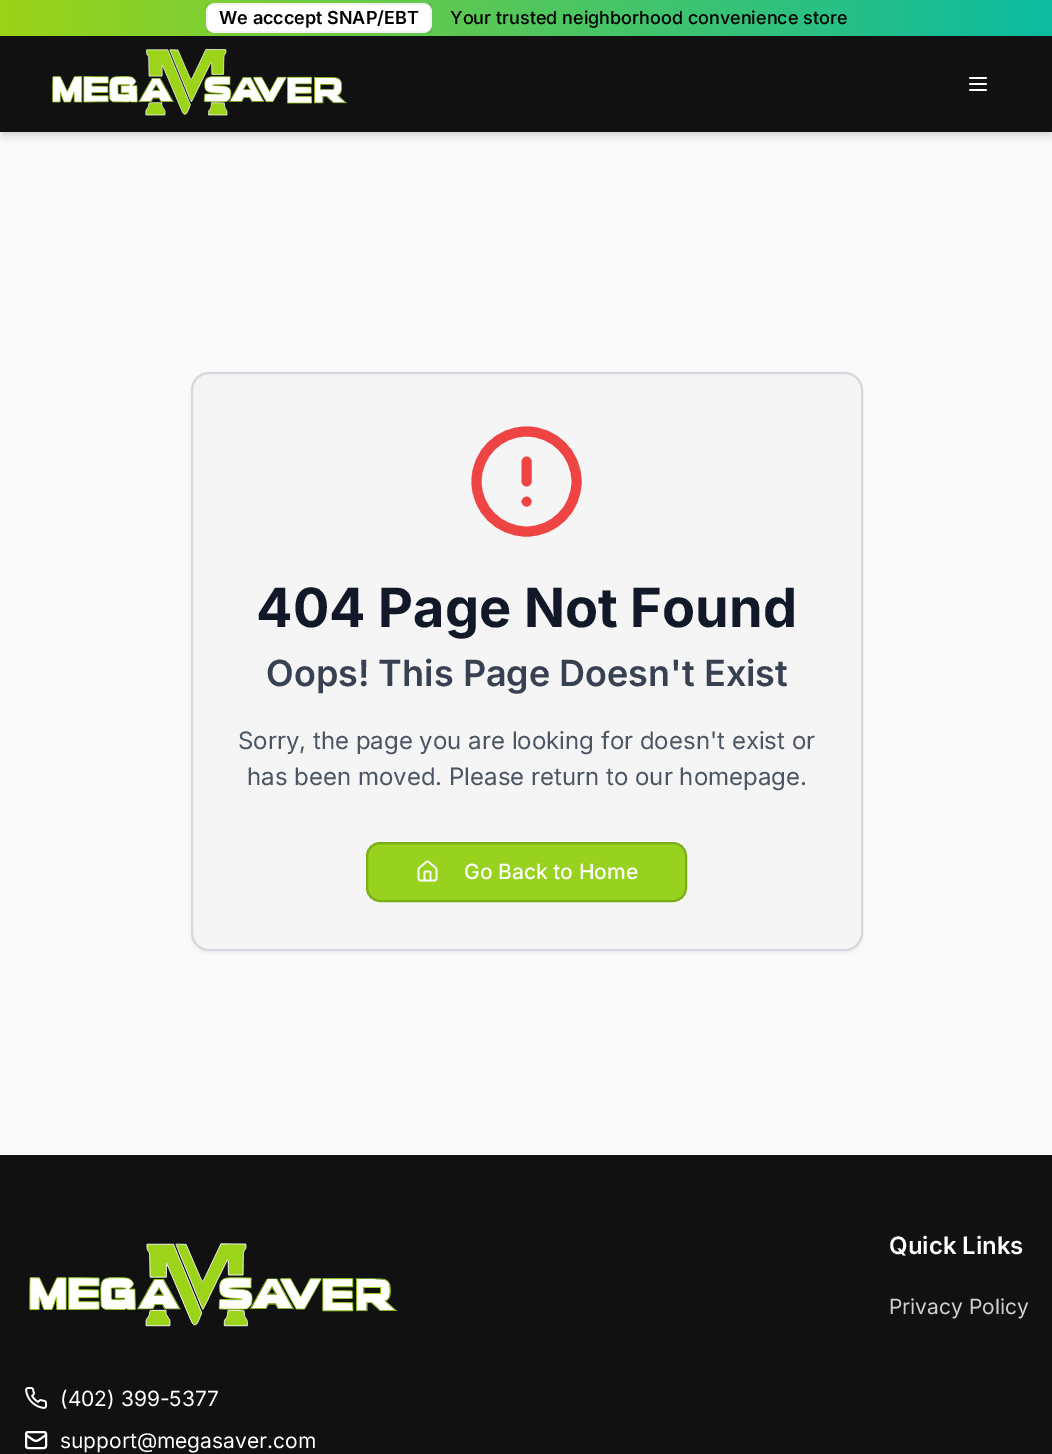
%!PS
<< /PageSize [1052 1454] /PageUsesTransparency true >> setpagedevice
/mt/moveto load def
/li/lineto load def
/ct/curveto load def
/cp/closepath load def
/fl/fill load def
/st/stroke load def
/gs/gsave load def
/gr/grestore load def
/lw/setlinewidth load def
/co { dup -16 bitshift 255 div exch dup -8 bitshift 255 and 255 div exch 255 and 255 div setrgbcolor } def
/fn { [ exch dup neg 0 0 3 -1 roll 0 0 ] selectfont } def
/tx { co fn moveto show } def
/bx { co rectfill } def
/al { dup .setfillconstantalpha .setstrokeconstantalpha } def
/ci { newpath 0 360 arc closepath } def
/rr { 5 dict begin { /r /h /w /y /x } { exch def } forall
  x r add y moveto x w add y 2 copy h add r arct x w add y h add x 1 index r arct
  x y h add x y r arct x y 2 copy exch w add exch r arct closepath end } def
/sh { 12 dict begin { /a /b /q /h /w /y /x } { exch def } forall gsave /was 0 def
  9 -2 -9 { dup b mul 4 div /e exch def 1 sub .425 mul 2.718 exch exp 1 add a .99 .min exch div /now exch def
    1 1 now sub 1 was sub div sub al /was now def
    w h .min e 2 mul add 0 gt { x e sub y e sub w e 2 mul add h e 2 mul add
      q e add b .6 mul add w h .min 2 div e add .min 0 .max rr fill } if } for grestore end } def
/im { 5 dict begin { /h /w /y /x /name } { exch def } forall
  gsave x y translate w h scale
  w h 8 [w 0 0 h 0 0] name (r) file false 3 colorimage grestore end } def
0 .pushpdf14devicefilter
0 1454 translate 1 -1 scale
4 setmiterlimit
0 0 1052 1454 16#FAFAFA bx
16#000000 co
3 42 1047 90 0 3 .1 sh
2 44 1050 93 0 4.5 .1 sh
gs 0 0 mt 1052 0 li 1052 36 li 0 36 li cp clip newpath
<< /ShadingType 2 /ColorSpace /DeviceRGB /Coords [0 18 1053 18] /Extend [true true] /Function << /FunctionType 2 /Domain [0 1] /C0 [.608 .831 .094] /C1 [.039 .733 .631] /N 1 >> >> shfill gr
16#FFFFFF co
206 3 226 30 9 rr fl
0.05 al
16#000000 co
2 lw
207 4 224 28 rectstroke
1 al
0 36 1052 96 16#111111 bx
(media/1.raw) 52 48 295 68 im
(media/2.raw) 969 77 18 14 im
16#000000 co
191 374 672 579 18 1.5 .05 sh
16#F5F5F5 co
192 373 670 577 17 rr gs fl gr
16#D3D9DE co
st
16#EF4444 co
10 lw
526.5 481.5 50 ci st
1 setlinecap
1 setlinejoin
526.5 461.5 mt 526.5 481.5 li 526.5 501.5 mt 526.5 501.5 li st
16#96D21E co
367 843 319 58 13 rr gs fl gr
16#7CAE19 co
2 lw
0 setlinecap
0 setlinejoin
st
(media/3.raw) 417 860 21 22 im
0 1155 1052 299 16#111111 bx
(media/4.raw) 29 1243 368 84 im
(media/5.raw) 25 1387 22 22 im
16#FFFFFF co
26 1432 20 16 2 rr st
1 setlinecap
1 setlinejoin
46 1435 mt 34 1443 38 1443 26 1435 ct st
(We acccept SNAP/EBT) 219 24 /Inter-SemiBold 18 16#000000 tx
(Your trusted neighborhood convenience store) 450 24 /Inter-Medium 18 16#000000 tx
(404 Page Not Found) 256 627 /Inter-Bold 54 16#111827 tx
(Oops! This Page Doesn't Exist) 266 686 /Inter-SemiBold 36 16#374151 tx
(Sorry, the page you are looking for doesn't exist or) 238 749 /Inter-Regular 24 16#4B5563 tx
(has been moved. Please return to our homepage.) 247 785 /Inter-Regular 24 16#4B5563 tx
(Go Back to Home) 464 879 /Inter-Medium 21 16#FFFFFF tx
(Quick Links) 889 1254 /Inter-SemiBold 24 16#FFFFFF tx
(Privacy Policy) 889 1314 /Inter-Regular 21 16#CFCFCF tx
(\(402\) 399-5377) 60 1406 /Inter-Regular 21 16#FFFFFF tx
(support@megasaver.com) 60 1448 /Inter-Regular 21 16#FFFFFF tx
.poppdf14devicefilter showpage
